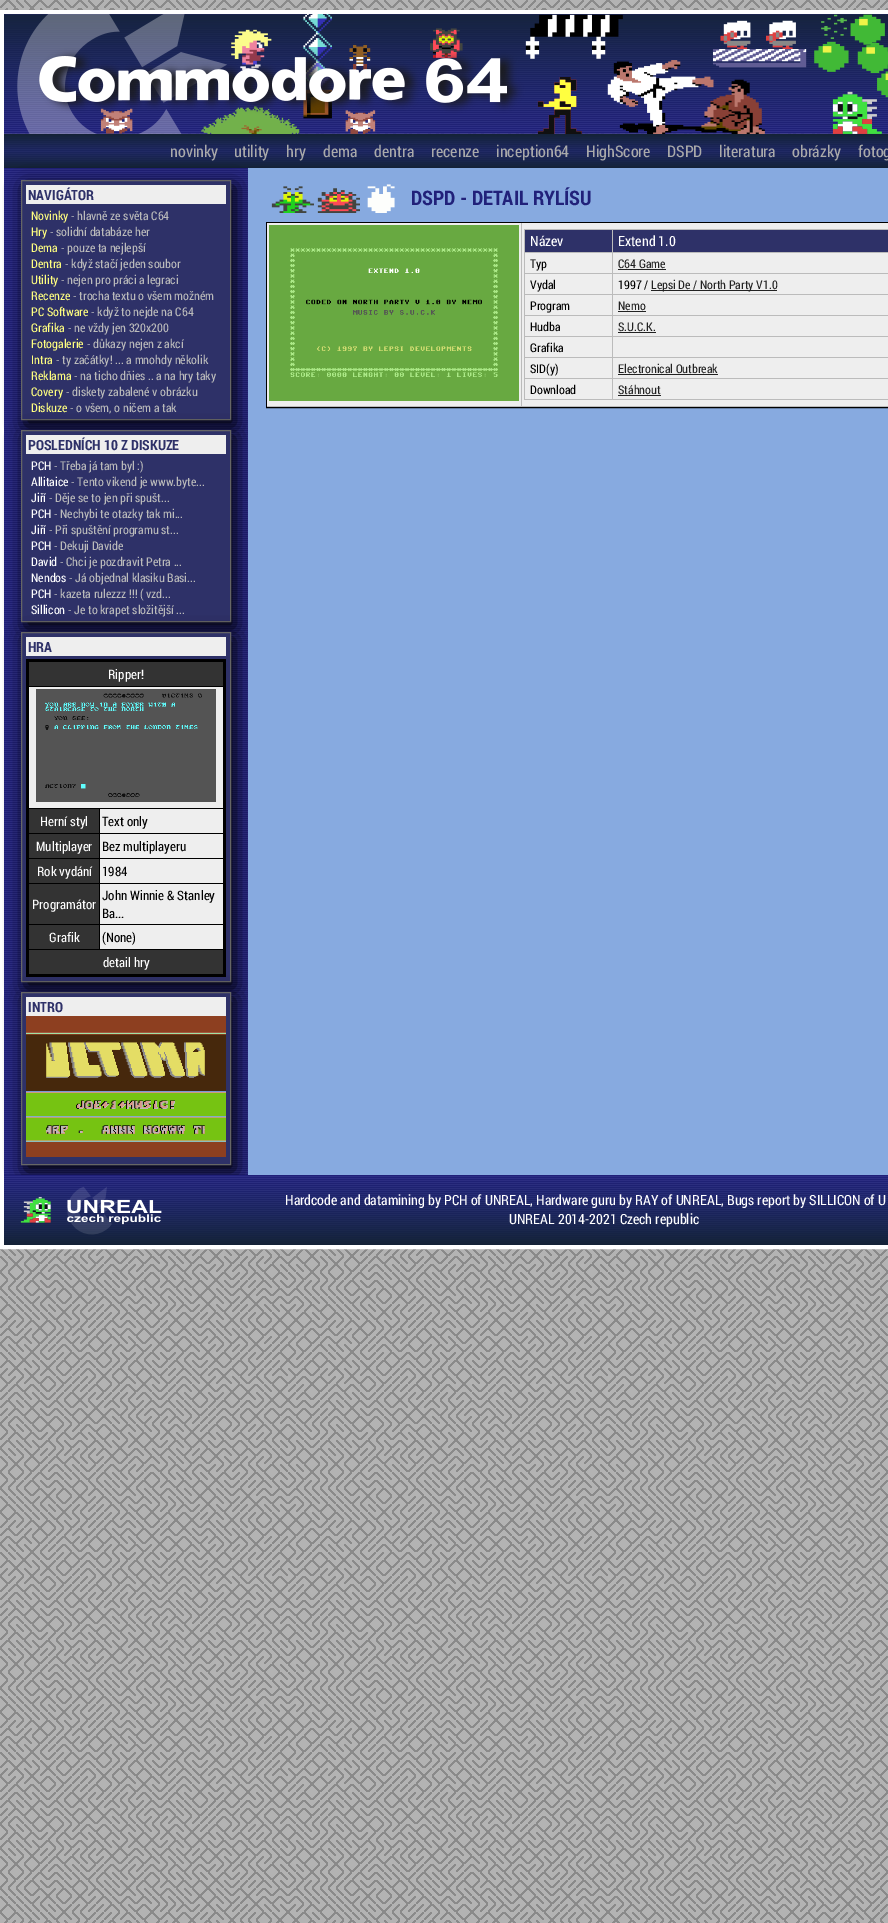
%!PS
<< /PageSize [888 1923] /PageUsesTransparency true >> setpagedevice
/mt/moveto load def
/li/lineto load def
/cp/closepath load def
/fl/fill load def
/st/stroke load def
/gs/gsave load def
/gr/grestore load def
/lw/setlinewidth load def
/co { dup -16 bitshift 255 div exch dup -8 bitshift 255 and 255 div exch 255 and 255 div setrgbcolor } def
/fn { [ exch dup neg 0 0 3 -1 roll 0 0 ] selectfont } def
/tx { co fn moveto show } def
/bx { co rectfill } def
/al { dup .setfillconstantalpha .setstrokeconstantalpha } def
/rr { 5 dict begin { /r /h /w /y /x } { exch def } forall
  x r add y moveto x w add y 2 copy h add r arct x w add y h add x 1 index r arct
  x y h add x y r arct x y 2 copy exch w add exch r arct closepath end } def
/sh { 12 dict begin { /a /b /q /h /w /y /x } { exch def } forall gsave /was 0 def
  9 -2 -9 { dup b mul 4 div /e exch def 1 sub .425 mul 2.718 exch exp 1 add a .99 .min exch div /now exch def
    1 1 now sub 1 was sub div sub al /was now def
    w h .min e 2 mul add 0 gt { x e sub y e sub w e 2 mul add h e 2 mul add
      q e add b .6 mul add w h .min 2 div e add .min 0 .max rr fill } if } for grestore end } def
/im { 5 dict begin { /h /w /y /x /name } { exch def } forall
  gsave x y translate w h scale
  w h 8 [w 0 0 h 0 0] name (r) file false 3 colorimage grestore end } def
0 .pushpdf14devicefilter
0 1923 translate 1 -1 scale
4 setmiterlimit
0 0 888 1923 16#FFFFFF bx
(media/1.raw) 0 0 888 1923 im
4 lw
2 12 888 1235 rectstroke
(media/2.raw) 4 14 884 120 im
(media/3.raw) 4 134 884 34 im
(media/4.raw) 4 168 244 1007 im
16#000000 co
25 186 210 240 0 10 1 sh
16#2E3168 co
21.5 180.5 mt 230.5 180.5 li 230.5 419.5 li 21.5 419.5 li cp gs fl gr
16#666666 co
1 lw
st
26 185 200 19 16#EEEEEE bx
16#000000 co
25 436 210 192 0 10 1 sh
16#2E3168 co
21.5 430.5 mt 230.5 430.5 li 230.5 621.5 li 21.5 621.5 li cp gs fl gr
16#666666 co
st
26 435 200 19 16#EEEEEE bx
16#000000 co
25 638 210 350 0 10 1 sh
16#2E3168 co
21.5 632.5 mt 230.5 632.5 li 230.5 981.5 li 21.5 981.5 li cp gs fl gr
16#666666 co
st
26 637 200 19 16#EEEEEE bx
29 687 194 262 16#EEEEEE bx
26 659 200 3 16#000000 bx
27 686 198 1 16#000000 bx
99 808 126 1 16#000000 bx
99 833 126 1 16#000000 bx
99 858 126 1 16#000000 bx
99 883 126 1 16#000000 bx
99 924 126 1 16#000000 bx
27 949 198 1 16#000000 bx
223 659 3 318 16#000000 bx
26 974 200 3 16#000000 bx
99 924 1 26 16#000000 bx
27 924 73 1 16#000000 bx
99 883 1 42 16#000000 bx
27 883 73 1 16#000000 bx
99 858 1 26 16#000000 bx
27 858 73 1 16#000000 bx
99 833 1 26 16#000000 bx
27 833 73 1 16#000000 bx
99 808 1 26 16#000000 bx
27 808 73 1 16#000000 bx
26 659 3 318 16#000000 bx
29 662 194 24 16#333333 bx
(media/5.raw) 36 689 180 113 im
29 809 70 24 16#333333 bx
29 834 70 24 16#333333 bx
29 859 70 24 16#333333 bx
29 884 70 40 16#333333 bx
29 925 70 24 16#333333 bx
29 950 194 24 16#333333 bx
16#000000 co
25 998 210 173 0 10 1 sh
16#2E3168 co
21.5 992.5 mt 230.5 992.5 li 230.5 1164.5 li 21.5 1164.5 li cp gs fl gr
16#666666 co
st
26 997 200 19 16#EEEEEE bx
(media/6.raw) 26 1016 200 141 im
248 168 640 1007 16#87AAE0 bx
(media/7.raw) 271 184 124 29 im
16#000000 co
266.5 222.5 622 185 rectstroke
267 223 254 183 16#EEEEEE bx
521 223 1 184 16#BBBBBB bx
267 406 621 1 16#BBBBBB bx
(media/8.raw) 269 225 250 176 im
522 223 366 183 16#EEEEEE bx
524 229 364 1 16#BBBBBB bx
524 229 1 171 16#BBBBBB bx
525 230 87 22 16#2E3168 bx
612 399 276 1 16#BBBBBB bx
612 378 1 22 16#BBBBBB bx
612 378 276 1 16#BBBBBB bx
612 357 1 22 16#BBBBBB bx
612 357 276 1 16#BBBBBB bx
612 336 1 22 16#BBBBBB bx
612 336 276 1 16#BBBBBB bx
612 315 1 22 16#BBBBBB bx
612 315 276 1 16#BBBBBB bx
612 294 1 22 16#BBBBBB bx
612 294 276 1 16#BBBBBB bx
612 273 1 22 16#BBBBBB bx
612 273 276 1 16#BBBBBB bx
612 252 1 22 16#BBBBBB bx
612 252 276 1 16#BBBBBB bx
612 229 1 24 16#BBBBBB bx
524 252 89 1 16#BBBBBB bx
613 230 275 22 16#2E3168 bx
524 273 89 1 16#BBBBBB bx
618 269 48 1 16#222222 bx
524 294 89 1 16#BBBBBB bx
651 290 126 1 16#222222 bx
524 315 89 1 16#BBBBBB bx
618 311 28 1 16#222222 bx
524 336 89 1 16#BBBBBB bx
618 332 38 1 16#222222 bx
524 357 89 1 16#BBBBBB bx
524 378 89 1 16#BBBBBB bx
618 374 100 1 16#222222 bx
524 399 89 1 16#BBBBBB bx
618 395 43 1 16#222222 bx
(media/9.raw) 4 1175 884 70 im
(novinky) 170 157 /RobotoCondensed-Regular 16 16#AAAAAA tx
(utility) 234 157 /RobotoCondensed-Regular 16 16#AAAAAA tx
(hry) 286 157 /RobotoCondensed-Regular 16 16#AAAAAA tx
(dema) 323 157 /RobotoCondensed-Regular 16 16#AAAAAA tx
(dentra) 374 157 /RobotoCondensed-Regular 16 16#AAAAAA tx
(recenze) 431 157 /RobotoCondensed-Regular 16 16#AAAAAA tx
(inception64) 496 157 /RobotoCondensed-Regular 16 16#AAAAAA tx
(HighScore) 586 157 /RobotoCondensed-Regular 16 16#AAAAAA tx
(DSPD) 667 157 /RobotoCondensed-Regular 16 16#AAAAAA tx
(literatura) 719 157 /RobotoCondensed-Regular 16 16#AAAAAA tx
(obrázky) 792 157 /RobotoCondensed-Regular 16 16#AAAAAA tx
(fotog) 858 157 /RobotoCondensed-Regular 16 16#AAAAAA tx
(NAVIGÁTOR) 28 200 /RobotoCondensed-Bold 14 16#2E3168 tx
(Novinky) 31 220 /RobotoCondensed-Regular 12 16#FFFF80 tx
(- hlavně ze světa C64) 71 220 /RobotoCondensed-Regular 12 16#BBBBBB tx
(Hry) 31 236 /RobotoCondensed-Regular 12 16#FFFF80 tx
(- solidní databáze her) 50 236 /RobotoCondensed-Regular 12 16#BBBBBB tx
(Dema) 31 252 /RobotoCondensed-Regular 12 16#FFFF80 tx
(- pouze ta nejlepší) 61 252 /RobotoCondensed-Regular 12 16#BBBBBB tx
(Dentra) 31 268 /RobotoCondensed-Regular 12 16#FFFF80 tx
(- když stačí jeden soubor) 65 268 /RobotoCondensed-Regular 12 16#BBBBBB tx
(Utility) 31 284 /RobotoCondensed-Regular 12 16#FFFF80 tx
(- nejen pro práci a legraci) 61 284 /RobotoCondensed-Regular 12 16#BBBBBB tx
(Recenze) 31 300 /RobotoCondensed-Regular 12 16#FFFF80 tx
(- trocha textu o všem možném) 73 300 /RobotoCondensed-Regular 12 16#BBBBBB tx
(PC Software) 31 316 /RobotoCondensed-Regular 12 16#FFFF80 tx
(- když to nejde na C64) 91 316 /RobotoCondensed-Regular 12 16#BBBBBB tx
(Grafika) 31 332 /RobotoCondensed-Regular 12 16#FFFF80 tx
(- ne vždy jen 320x200) 68 332 /RobotoCondensed-Regular 12 16#BBBBBB tx
(Fotogalerie) 31 348 /RobotoCondensed-Regular 12 16#FFFF80 tx
(- důkazy nejen z akcí) 87 348 /RobotoCondensed-Regular 12 16#BBBBBB tx
(Intra) 31 364 /RobotoCondensed-Regular 12 16#FFFF80 tx
(- ty začátky! ... a mnohdy několik) 56 364 /RobotoCondensed-Regular 12 16#BBBBBB tx
(Reklama) 31 380 /RobotoCondensed-Regular 12 16#FFFF80 tx
(- na ticho dňies .. a na hry taky) 74 380 /RobotoCondensed-Regular 12 16#BBBBBB tx
(Covery) 31 396 /RobotoCondensed-Regular 12 16#FFFF80 tx
(- diskety zabalené v obrázku) 66 396 /RobotoCondensed-Regular 12 16#BBBBBB tx
(Diskuze) 31 412 /RobotoCondensed-Regular 12 16#FFFF80 tx
(- o všem, o ničem a tak) 70 412 /RobotoCondensed-Regular 12 16#BBBBBB tx
(POSLEDNÍCH 10 Z DISKUZE) 28 450 /RobotoCondensed-Bold 14 16#2E3168 tx
(PCH) 31 470 /RobotoCondensed-Regular 12 16#FFFFFF tx
(- Třeba já tam byl :\)) 54 470 /RobotoCondensed-Regular 12 16#BBBBBB tx
(Allitaice) 31 486 /RobotoCondensed-Regular 12 16#FFFFFF tx
(- Tento vikend je www.byte...) 71 486 /RobotoCondensed-Regular 12 16#BBBBBB tx
(Jiří) 31 502 /RobotoCondensed-Regular 12 16#FFFFFF tx
(- Děje se to jen při spušt...) 49 502 /RobotoCondensed-Regular 12 16#BBBBBB tx
(PCH) 31 518 /RobotoCondensed-Regular 12 16#FFFFFF tx
(- Nechybi te otazky tak mi...) 54 518 /RobotoCondensed-Regular 12 16#BBBBBB tx
(Jiří) 31 534 /RobotoCondensed-Regular 12 16#FFFFFF tx
(- Při spuštění programu st...) 49 534 /RobotoCondensed-Regular 12 16#BBBBBB tx
(PCH) 31 550 /RobotoCondensed-Regular 12 16#FFFFFF tx
(- Dekuji Davide) 54 550 /RobotoCondensed-Regular 12 16#BBBBBB tx
(David) 31 566 /RobotoCondensed-Regular 12 16#FFFFFF tx
(- Chci je pozdravit Petra ...) 60 566 /RobotoCondensed-Regular 12 16#BBBBBB tx
(Nendos) 31 582 /RobotoCondensed-Regular 12 16#FFFFFF tx
(- Já objednal klasiku Basi...) 69 582 /RobotoCondensed-Regular 12 16#BBBBBB tx
(PCH) 31 598 /RobotoCondensed-Regular 12 16#FFFFFF tx
(- kazeta rulezzz !!! \( vzd...) 54 598 /RobotoCondensed-Regular 12 16#BBBBBB tx
(Sillicon) 31 614 /RobotoCondensed-Regular 12 16#FFFFFF tx
(- Je to krapet složitější ...) 68 614 /RobotoCondensed-Regular 12 16#BBBBBB tx
(HRA) 28 652 /RobotoCondensed-Bold 14 16#2E3168 tx
(Ripper!) 108 679 /RobotoCondensed-Regular 13 16#FFFFFF tx
(Herní styl) 40 826 /RobotoCondensed-Regular 13 16#FFFFFF tx
(Text only) 102 826 /RobotoCondensed-Regular 13 16#000000 tx
(Multiplayer) 36 851 /RobotoCondensed-Regular 13 16#FFFFFF tx
(Bez multiplayeru) 102 851 /RobotoCondensed-Regular 13 16#000000 tx
(Rok vydání) 37 876 /RobotoCondensed-Regular 13 16#FFFFFF tx
(1984) 102 876 /RobotoCondensed-Regular 13 16#000000 tx
(Programátor) 32 909 /RobotoCondensed-Regular 13 16#FFFFFF tx
(John Winnie & Stanley) 102 900 /RobotoCondensed-Regular 13 16#000000 tx
(Ba...) 102 918 /RobotoCondensed-Regular 13 16#000000 tx
(Grafik) 49 942 /RobotoCondensed-Regular 13 16#FFFFFF tx
(\(None\)) 102 942 /RobotoCondensed-Regular 13 16#000000 tx
(detail hry) 103 967 /RobotoCondensed-Regular 13 16#FFFFFF tx
(INTRO) 28 1012 /RobotoCondensed-Bold 14 16#2E3168 tx
(DSPD - DETAIL RYLÍSU) 411 205 /RobotoCondensed-Bold 20 16#21217A tx
(Název) 530 246 /RobotoCondensed-Regular 14 16#FFFFFF tx
(Extend 1.0) 618 246 /RobotoCondensed-Regular 14 16#FFFFFF tx
(Typ) 530 268 /RobotoCondensed-Regular 12 16#000000 tx
(C64 Game) 618 268 /RobotoCondensed-Regular 12 16#222222 tx
(Vydal) 530 289 /RobotoCondensed-Regular 12 16#000000 tx
(1997 /) 618 289 /RobotoCondensed-Regular 12 16#000000 tx
(Lepsi De / North Party V1.0) 651 289 /RobotoCondensed-Regular 12 16#222222 tx
(Program) 530 310 /RobotoCondensed-Regular 12 16#000000 tx
(Nemo) 618 310 /RobotoCondensed-Regular 12 16#222222 tx
(Hudba) 530 331 /RobotoCondensed-Regular 12 16#000000 tx
(S.U.C.K.) 618 331 /RobotoCondensed-Regular 12 16#222222 tx
(Grafika) 530 352 /RobotoCondensed-Regular 12 16#000000 tx
(SID\(y\)) 530 373 /RobotoCondensed-Regular 12 16#000000 tx
(Electronical Outbreak) 618 373 /RobotoCondensed-Regular 12 16#222222 tx
(Download) 530 394 /RobotoCondensed-Regular 12 16#000000 tx
(Stáhnout) 618 394 /RobotoCondensed-Regular 12 16#222222 tx
(Hardcode and datamining by PCH of UNREAL, Hardware guru by RAY of UNREAL, Bugs report by SILLICON of U) 285 1205 /RobotoCondensed-Regular 14 16#FFFFFF tx
(UNREAL 2014-2021 Czech republic) 509 1224 /RobotoCondensed-Regular 14 16#FFFFFF tx
.poppdf14devicefilter showpage
